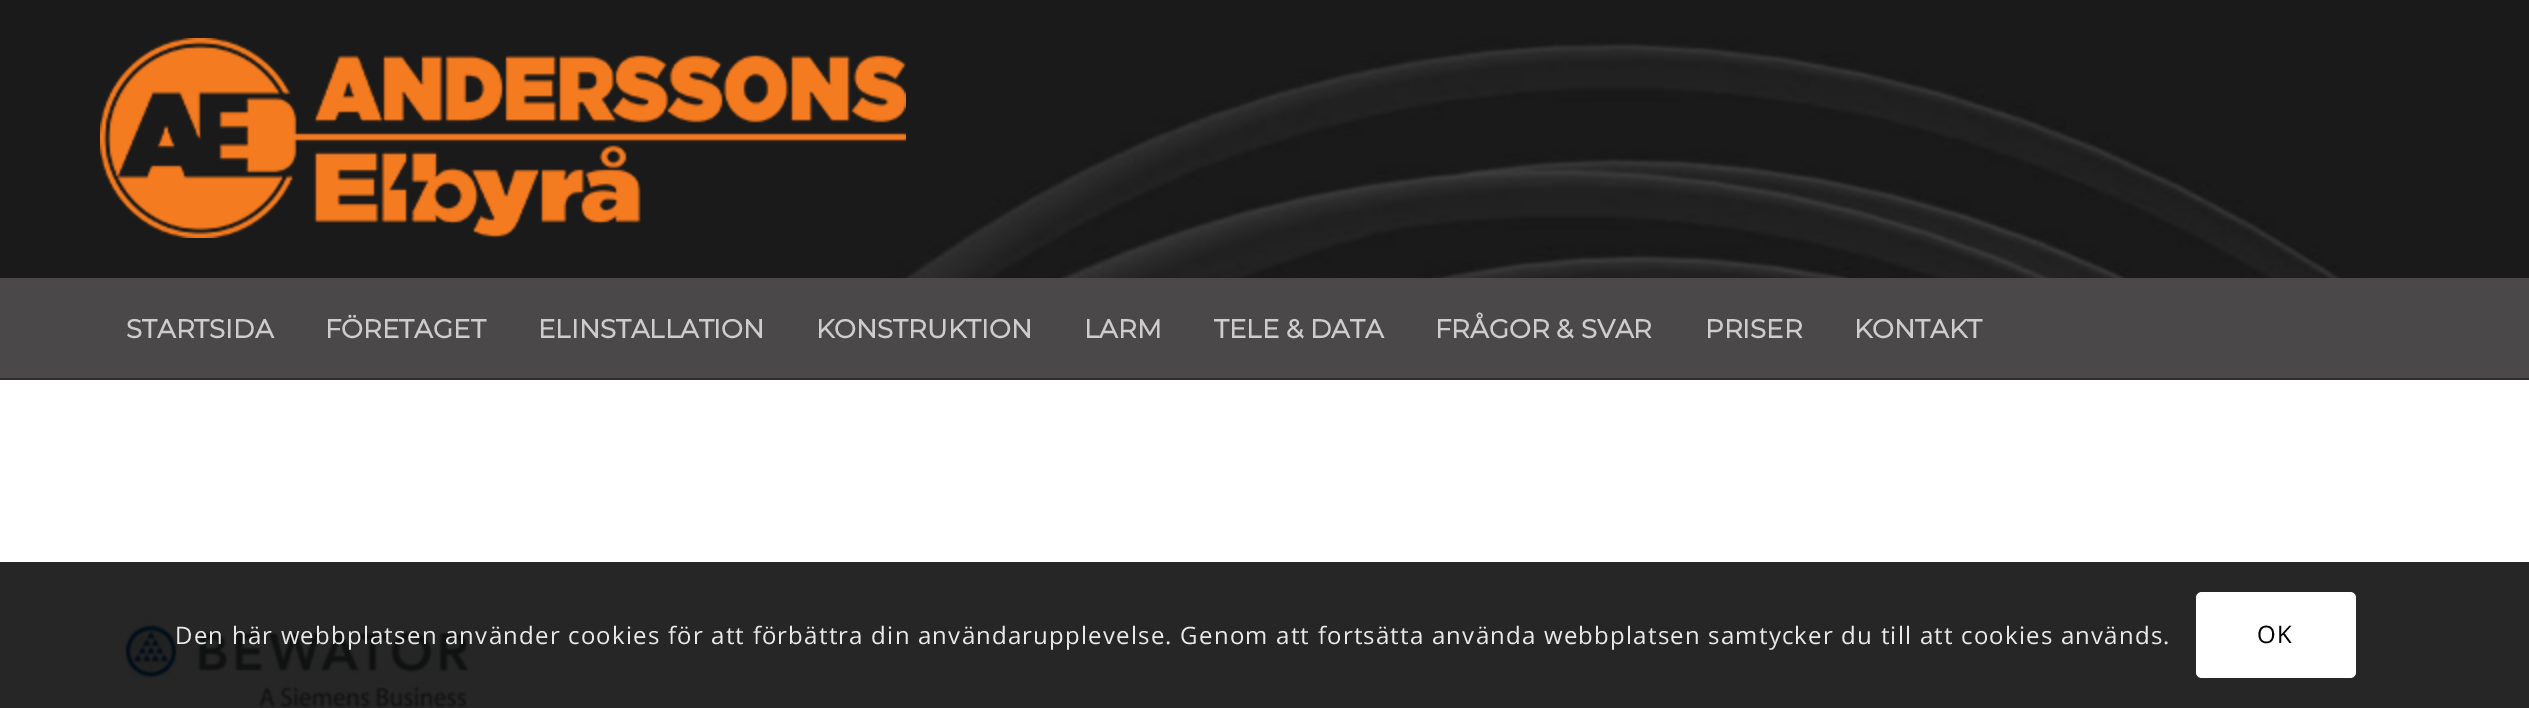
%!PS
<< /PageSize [2529 708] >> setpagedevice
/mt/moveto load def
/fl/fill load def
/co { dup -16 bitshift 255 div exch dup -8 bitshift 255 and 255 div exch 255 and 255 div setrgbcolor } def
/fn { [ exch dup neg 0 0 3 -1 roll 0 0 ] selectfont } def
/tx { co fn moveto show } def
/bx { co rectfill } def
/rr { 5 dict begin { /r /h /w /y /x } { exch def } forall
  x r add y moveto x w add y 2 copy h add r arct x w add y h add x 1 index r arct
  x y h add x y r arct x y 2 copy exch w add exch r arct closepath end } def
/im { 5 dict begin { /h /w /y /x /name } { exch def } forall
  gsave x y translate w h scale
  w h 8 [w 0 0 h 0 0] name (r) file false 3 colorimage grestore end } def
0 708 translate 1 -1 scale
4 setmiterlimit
0 0 2529 708 16#2D2D2D bx
(media/1.raw) 0 0 2529 278 im
(media/2.raw) 100 38 806 200 im
0 278 2529 100 16#4A4849 bx
0 380 2529 182 16#FFFFFF bx
0 562 2529 146 16#262626 bx
(media/3.raw) 116 616 353 92 im
16#FFFFFF co
2196 592 160 86 6 rr fl
(STARTSIDA) 126 338 /Montserrat-Bold 26 16#CDCDCD tx
(FÖRETAGET) 325 338 /Montserrat-Bold 26 16#CDCDCD tx
(ELINSTALLATION) 538 338 /Montserrat-Bold 26 16#CDCDCD tx
(KONSTRUKTION) 816 338 /Montserrat-Bold 26 16#CDCDCD tx
(LARM) 1084 338 /Montserrat-Bold 26 16#CDCDCD tx
(TELE & DATA) 1214 338 /Montserrat-Bold 26 16#CDCDCD tx
(FRÅGOR & SVAR) 1435 338 /Montserrat-Bold 26 16#CDCDCD tx
(PRISER) 1705 338 /Montserrat-Bold 26 16#CDCDCD tx
(KONTAKT) 1854 338 /Montserrat-Bold 26 16#CDCDCD tx
/OpenSans-Regular 24 fn
16#E9E9E9 co
175 644 mt 1.2 0 (Den här webbplatsen använder cookies för att förbättra din användarupplevelse. Genom att fortsätta använda webbplatsen samtycker du till att cookies används.) ashow
16#000000 co
2257 643 mt 1.2 0 (OK) ashow
showpage
